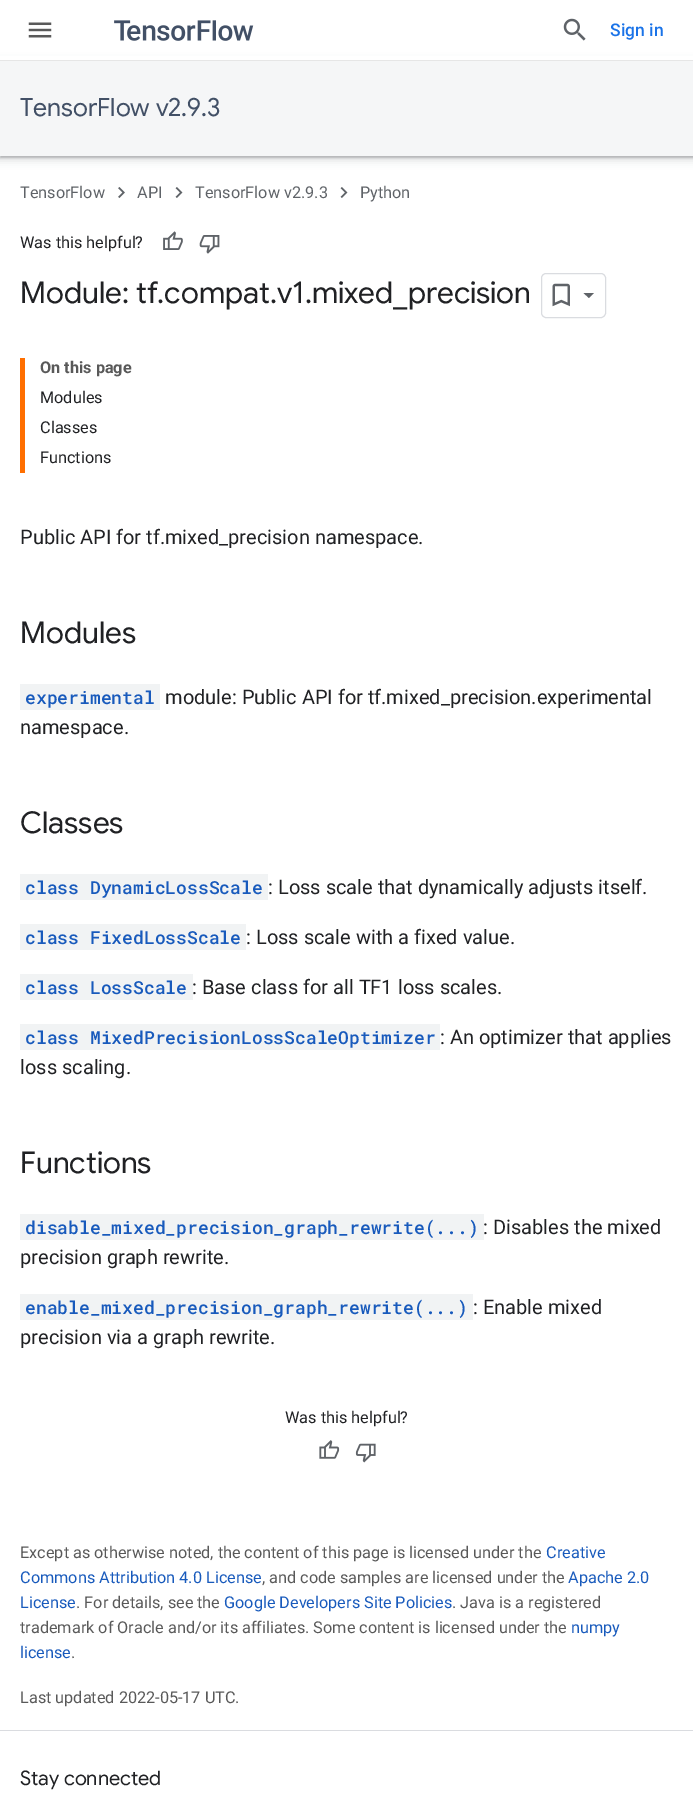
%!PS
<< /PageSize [693 1819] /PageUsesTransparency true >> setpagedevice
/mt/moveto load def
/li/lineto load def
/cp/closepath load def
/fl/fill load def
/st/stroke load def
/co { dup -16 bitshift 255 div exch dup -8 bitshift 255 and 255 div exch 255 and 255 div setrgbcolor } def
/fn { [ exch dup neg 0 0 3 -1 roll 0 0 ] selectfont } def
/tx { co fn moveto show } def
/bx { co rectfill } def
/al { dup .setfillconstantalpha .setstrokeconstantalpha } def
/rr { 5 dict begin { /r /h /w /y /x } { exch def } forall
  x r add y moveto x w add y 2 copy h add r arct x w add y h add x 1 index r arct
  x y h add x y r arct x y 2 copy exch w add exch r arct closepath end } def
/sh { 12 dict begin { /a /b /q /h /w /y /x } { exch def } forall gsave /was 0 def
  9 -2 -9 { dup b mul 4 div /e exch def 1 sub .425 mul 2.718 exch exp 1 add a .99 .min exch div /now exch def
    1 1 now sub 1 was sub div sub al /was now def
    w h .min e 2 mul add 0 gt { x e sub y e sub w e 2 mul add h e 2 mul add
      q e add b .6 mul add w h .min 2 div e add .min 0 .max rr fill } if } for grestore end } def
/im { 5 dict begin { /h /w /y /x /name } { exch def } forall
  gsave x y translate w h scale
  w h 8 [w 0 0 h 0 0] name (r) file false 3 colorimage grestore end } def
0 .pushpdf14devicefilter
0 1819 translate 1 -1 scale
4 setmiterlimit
0 0 693 1819 16#FFFFFF bx
16#3C4043 co
-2 61 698 100 0 4 .15 sh
0 63 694 95 0 1 .3 sh
0 56 693 4 16#FFFFFF bx
0 60 693 1 16#E6E6E6 bx
(media/1.raw) 28 22 24 16 im
(media/2.raw) 114 20 140 21 im
(media/3.raw) 563 18 23 23 im
0 61 693 95 16#F5F6F7 bx
(media/4.raw) 118 187 7 11 im
(media/5.raw) 175 187 8 11 im
(media/5.raw) 340 187 8 11 im
(media/6.raw) 163 231 20 19 im
(media/7.raw) 199 235 21 19 im
16#DADCE0 co
541.5 273.5 64 44 4.5 rr st
(media/8.raw) 552 283 18 24 im
16#5F6368 co
583.5 293 mt 594 293 li 589 298 li cp fl
20 358 5 115 16#FF6F00 bx
20 684 140 26 16#F1F3F4 bx
20 874 248 26 16#F1F3F4 bx
20 924 226 26 16#F1F3F4 bx
20 974 173 26 16#F1F3F4 bx
20 1024 420 26 16#F1F3F4 bx
20 1214 464 26 16#F1F3F4 bx
20 1294 453 26 16#F1F3F4 bx
(media/9.raw) 319 1440 21 19 im
(media/10.raw) 355 1443 21 20 im
0 1730 693 1 16#DADCE0 bx
(Sign in) 610 36 /Roboto-Medium 17.5 16#1A73E8 tx
(TensorFlow v2.9.3) 20 116 /GoogleSans-Regular 25 16#425066 tx
(TensorFlow) 20 198 /Roboto-Regular 16.25 16#5F6368 tx
(API) 137 198 /Roboto-Regular 16.25 16#5F6368 tx
(TensorFlow v2.9.3) 195 198 /Roboto-Regular 16.25 16#5F6368 tx
(Python) 360 198 /Roboto-Regular 16.25 16#5F6368 tx
(Was this helpful?) 20 248 /Roboto-Regular 16.25 16#202124 tx
(Module: tf.compat.v1.mixed_precision) 20 303 /GoogleSans-Regular 30 16#202124 tx
(On this page) 40 373 /Roboto-Bold 16.25 16#595959 tx
(Modules) 40 403 /Roboto-Regular 16.25 16#202124 tx
(Classes) 40 433 /Roboto-Regular 16.25 16#202124 tx
(Functions) 40 463 /Roboto-Regular 16.25 16#202124 tx
(Public API for tf.mixed_precision namespace.) 20 544 /Roboto-Regular 20 16#202124 tx
(Modules) 20 643 /GoogleSans-Regular 30 16#202124 tx
(experimental) 25 704 /RobotoMono-Medium 18 16#185ABC tx
(module: Public API for tf.mixed_precision.experimental) 165 704 /Roboto-Regular 20 16#202124 tx
(namespace.) 20 734 /Roboto-Regular 20 16#202124 tx
(Classes) 20 833 /GoogleSans-Regular 30 16#202124 tx
(class DynamicLossScale) 25 894 /RobotoMono-Medium 18 16#185ABC tx
(: Loss scale that dynamically adjusts itself.) 268 894 /Roboto-Regular 20 16#202124 tx
(class FixedLossScale) 25 944 /RobotoMono-Medium 18 16#185ABC tx
(: Loss scale with a fixed value.) 246 944 /Roboto-Regular 20 16#202124 tx
(class LossScale) 25 994 /RobotoMono-Medium 18 16#185ABC tx
(: Base class for all TF1 loss scales.) 192 994 /Roboto-Regular 20 16#202124 tx
(class MixedPrecisionLossScaleOptimizer) 25 1044 /RobotoMono-Medium 18 16#185ABC tx
(: An optimizer that applies) 440 1044 /Roboto-Regular 20 16#202124 tx
(loss scaling.) 20 1074 /Roboto-Regular 20 16#202124 tx
(Functions) 20 1173 /GoogleSans-Regular 30 16#202124 tx
(disable_mixed_precision_graph_rewrite\(...\)) 25 1234 /RobotoMono-Medium 18 16#185ABC tx
(: Disables the mixed) 483 1234 /Roboto-Regular 20 16#202124 tx
(precision graph rewrite.) 20 1264 /Roboto-Regular 20 16#202124 tx
(enable_mixed_precision_graph_rewrite\(...\)) 25 1314 /RobotoMono-Medium 18 16#185ABC tx
(: Enable mixed) 473 1314 /Roboto-Regular 20 16#202124 tx
(precision via a graph rewrite.) 20 1344 /Roboto-Regular 20 16#202124 tx
(Was this helpful?) 285 1423 /Roboto-Regular 16.25 16#202124 tx
(Except as otherwise noted, the content of this page is licensed under the) 20 1558 /Roboto-Regular 16.25 16#595959 tx
(Creative) 546 1558 /Roboto-Regular 16.25 16#185ABC tx
(Commons Attribution 4.0 License) 20 1583 /Roboto-Regular 16.25 16#185ABC tx
(, and code samples are licensed under the) 262 1583 /Roboto-Regular 16.25 16#595959 tx
(Apache 2.0) 568 1583 /Roboto-Regular 16.25 16#185ABC tx
(License) 20 1608 /Roboto-Regular 16.25 16#185ABC tx
(. For details, see the) 76 1608 /Roboto-Regular 16.25 16#595959 tx
(Google Developers Site Policies) 224 1608 /Roboto-Regular 16.25 16#185ABC tx
(. Java is a registered) 452 1608 /Roboto-Regular 16.25 16#595959 tx
(trademark of Oracle and/or its affiliates. Some content is licensed under the) 20 1633 /Roboto-Regular 16.25 16#595959 tx
(numpy) 571 1633 /Roboto-Regular 16.25 16#185ABC tx
(license) 20 1658 /Roboto-Regular 16.25 16#185ABC tx
(.) 71 1658 /Roboto-Regular 16.25 16#595959 tx
(Last updated 2022-05-17 UTC.) 20 1703 /Roboto-Regular 16.25 16#595959 tx
(Stay connected) 20 1785 /GoogleSans-Regular 20 16#202124 tx
.poppdf14devicefilter showpage
